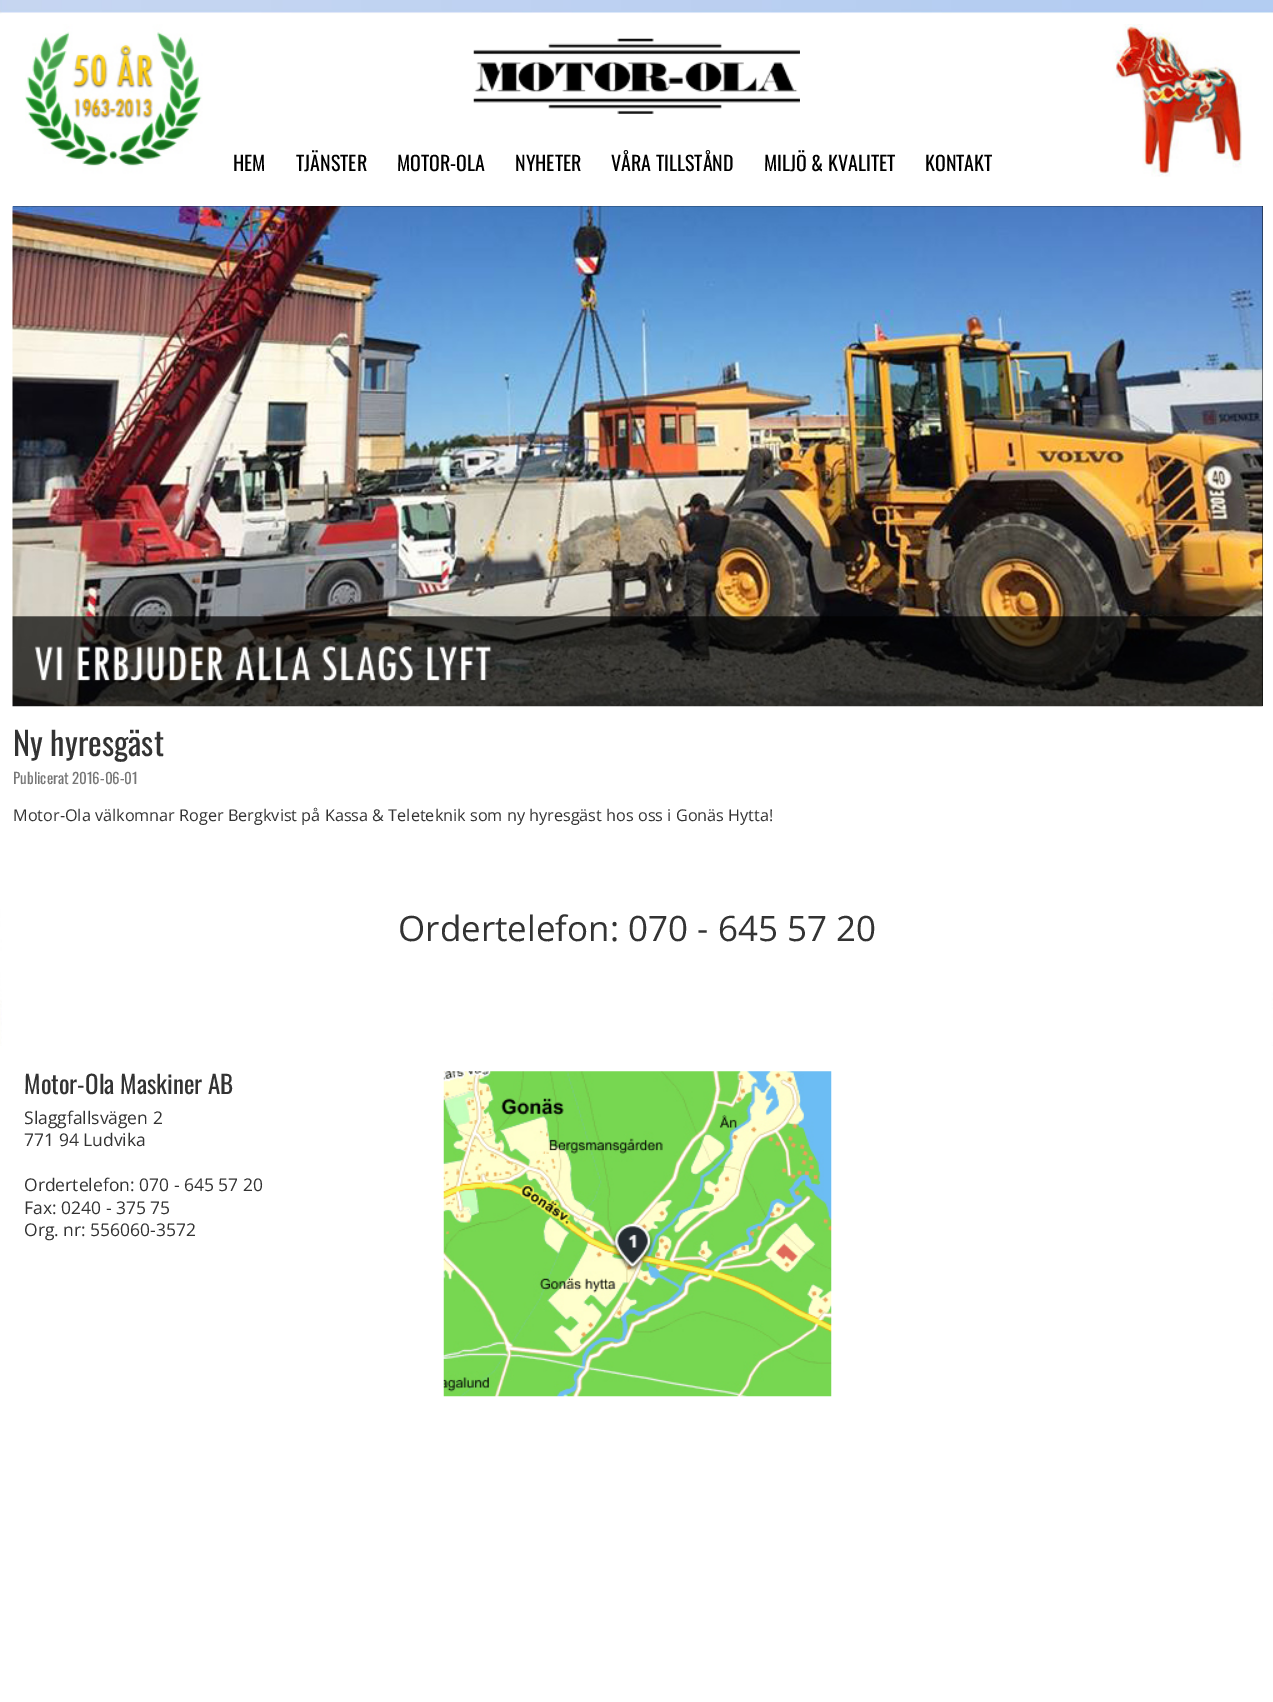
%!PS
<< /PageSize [1273 1702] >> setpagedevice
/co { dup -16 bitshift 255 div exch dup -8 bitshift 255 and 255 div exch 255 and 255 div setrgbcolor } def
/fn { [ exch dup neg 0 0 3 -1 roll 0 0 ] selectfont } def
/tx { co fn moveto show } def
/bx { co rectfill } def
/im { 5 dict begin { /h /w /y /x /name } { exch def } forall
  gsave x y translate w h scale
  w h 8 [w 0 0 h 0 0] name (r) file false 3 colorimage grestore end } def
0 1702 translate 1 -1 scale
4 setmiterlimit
0 0 1273 1702 16#FFFFFF bx
(media/1.raw) 0 0 1273 1046 im
0 14 1273 895 16#FFFFFF bx
(media/2.raw) 25 24 1217 153 im
(media/3.raw) 473 38 327 76 im
13 206 1250 500 16#000000 bx
(media/4.raw) 12 206 1251 501 im
(media/5.raw) 443 1071 389 326 im
(HEM) 233 171 /Oswald-Regular 20 16#000000 tx
(TJÄNSTER) 296 171 /Oswald-Regular 20 16#000000 tx
(MOTOR-OLA) 397 171 /Oswald-Regular 20 16#000000 tx
(NYHETER) 515 171 /Oswald-Regular 20 16#000000 tx
(VÅRA TILLSTÅND) 611 171 /Oswald-Regular 20 16#000000 tx
(MILJÖ & KVALITET) 764 171 /Oswald-Regular 20 16#000000 tx
(KONTAKT) 925 171 /Oswald-Regular 20 16#000000 tx
(Ny hyresgäst) 13 756 /Oswald-Regular 32.5 16#333333 tx
(Publicerat 2016-06-01) 13 784 /Oswald-Regular 15 16#777777 tx
(Motor-Ola välkomnar Roger Bergkvist på Kassa & Teleteknik som ny hyresgäst hos oss i Gonäs Hytta!) 13 821 /OpenSans-Regular 16.25 16#333333 tx
(Ordertelefon: 070 - 645 57 20) 398 941 /OpenSans-Regular 35 16#333333 tx
(Motor-Ola Maskiner AB) 24 1094 /Oswald-Regular 25 16#333333 tx
(Slaggfallsvägen 2) 24 1124 /OpenSans-Regular 17.5 16#333333 tx
(771 94 Ludvika) 24 1146 /OpenSans-Regular 17.5 16#333333 tx
(Ordertelefon: 070 - 645 57 20) 24 1191 /OpenSans-Regular 17.5 16#333333 tx
(Fax: 0240 - 375 75) 24 1214 /OpenSans-Regular 17.5 16#333333 tx
(Org. nr: 556060-3572) 24 1236 /OpenSans-Regular 17.5 16#333333 tx
showpage
